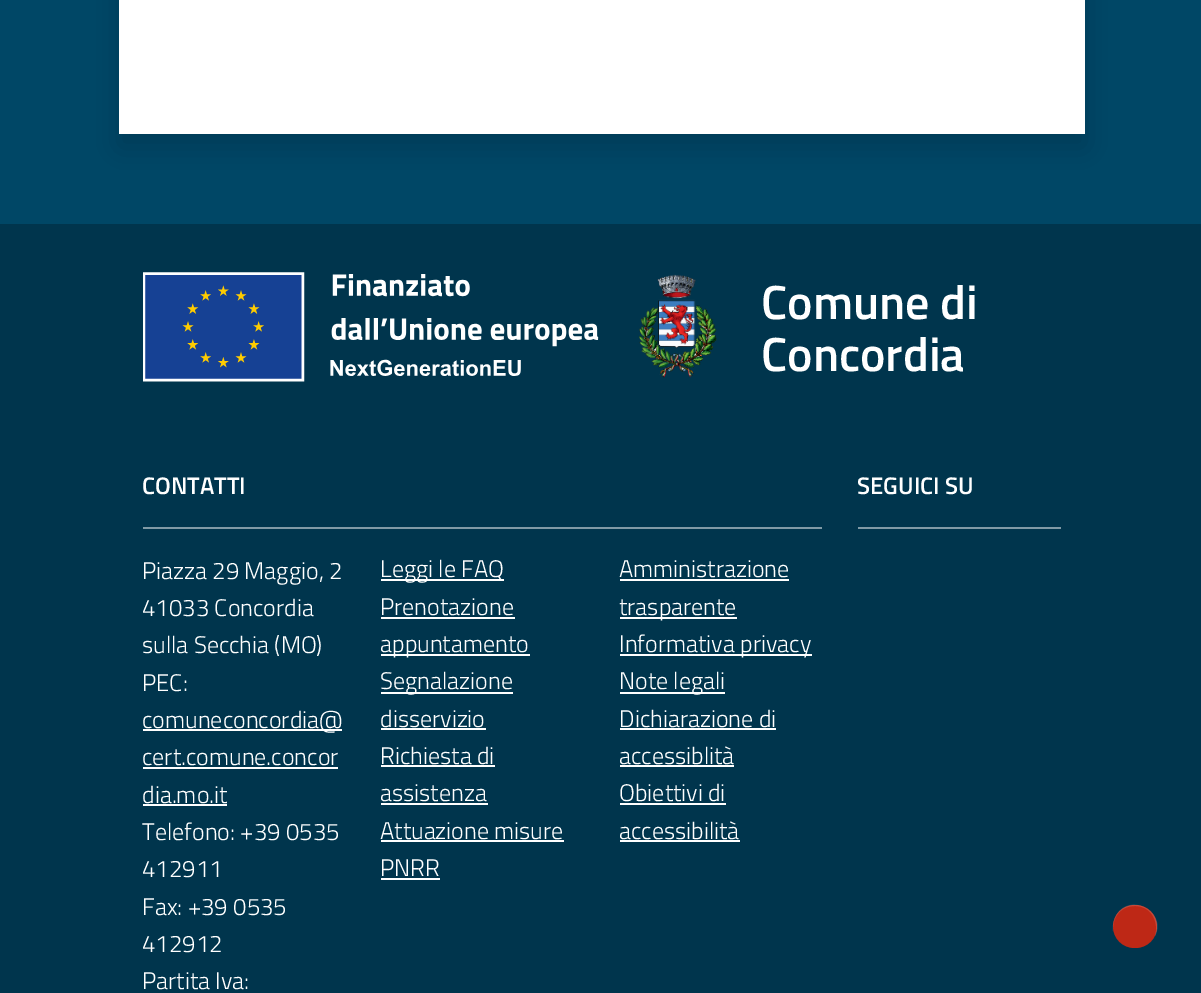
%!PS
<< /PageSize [1201 993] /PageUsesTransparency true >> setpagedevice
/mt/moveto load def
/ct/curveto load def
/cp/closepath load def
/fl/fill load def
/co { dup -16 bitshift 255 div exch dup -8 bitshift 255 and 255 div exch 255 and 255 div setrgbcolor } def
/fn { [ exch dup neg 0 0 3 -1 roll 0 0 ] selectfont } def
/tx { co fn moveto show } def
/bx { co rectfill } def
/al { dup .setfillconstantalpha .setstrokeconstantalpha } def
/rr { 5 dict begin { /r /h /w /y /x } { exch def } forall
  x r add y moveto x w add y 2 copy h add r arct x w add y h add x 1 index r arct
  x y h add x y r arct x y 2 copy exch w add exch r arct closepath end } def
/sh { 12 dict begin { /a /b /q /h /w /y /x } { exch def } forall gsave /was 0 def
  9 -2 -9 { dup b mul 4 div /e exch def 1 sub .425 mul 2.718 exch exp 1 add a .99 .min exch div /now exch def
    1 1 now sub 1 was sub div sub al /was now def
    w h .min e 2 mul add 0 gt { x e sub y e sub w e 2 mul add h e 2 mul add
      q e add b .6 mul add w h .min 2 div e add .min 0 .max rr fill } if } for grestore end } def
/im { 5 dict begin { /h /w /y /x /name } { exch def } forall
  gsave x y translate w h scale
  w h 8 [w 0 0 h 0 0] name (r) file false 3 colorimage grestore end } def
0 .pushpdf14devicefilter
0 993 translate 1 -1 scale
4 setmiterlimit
0 0 1201 993 16#004766 bx
16#000000 co
119 -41 966 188 0 13.5 .15 sh
119 0 966 134 16#FFFFFF bx
0 224 1201 769 16#00354D bx
(media/1.raw) 143 272 456 110 im
(media/2.raw) 639 274 78 104 im
143 527 679 2 16#809AA6 bx
143 729 199 2 16#FFFFFF bx
143 767 195 2 16#FFFFFF bx
143 804 84 2 16#FFFFFF bx
858 527 203 2 16#809AA6 bx
381 579 123 2 16#FFFFFF bx
381 617 134 2 16#FFFFFF bx
381 654 149 2 16#FFFFFF bx
381 692 132 2 16#FFFFFF bx
381 728 105 2 16#FFFFFF bx
381 765 114 2 16#FFFFFF bx
381 803 107 2 16#FFFFFF bx
381 840 183 2 16#FFFFFF bx
381 878 59 2 16#FFFFFF bx
620 579 169 2 16#FFFFFF bx
620 617 117 2 16#FFFFFF bx
620 654 192 2 16#FFFFFF bx
620 692 105 2 16#FFFFFF bx
620 728 156 2 16#FFFFFF bx
620 765 114 2 16#FFFFFF bx
620 803 106 2 16#FFFFFF bx
620 840 120 2 16#FFFFFF bx
16#BE2816 co
1113 905 44 43 21.5 rr fl
0.15 al
16#FFFFFF co
1135 906 mt 1153 906 1159 924 1155 936 ct 1167 913 1132 892 1117 914 ct 1114 919 1112 925 1113 931 ct 1112 919 1119 906 1135 906 ct cp fl
1 al
(Comune di) 761 319 /TitilliumWeb-SemiBold 48 16#FFFFFF tx
(Concordia) 761 371 /TitilliumWeb-SemiBold 48 16#FFFFFF tx
(CONTATTI) 142 494 /TitilliumWeb-SemiBold 24 16#FFFFFF tx
(Piazza 29 Maggio, 2) 142 579 /TitilliumWeb-Light 24 16#FFFFFF tx
(41033 Concordia) 142 616 /TitilliumWeb-Light 24 16#FFFFFF tx
(sulla Secchia \(MO\)) 142 653 /TitilliumWeb-Light 24 16#FFFFFF tx
(PEC:) 142 691 /TitilliumWeb-Light 24 16#FFFFFF tx
(comuneconcordia@) 142 728 /TitilliumWeb-Light 24 16#FFFFFF tx
(cert.comune.concor) 142 765 /TitilliumWeb-Light 24 16#FFFFFF tx
(dia.mo.it) 142 803 /TitilliumWeb-Light 24 16#FFFFFF tx
(Telefono: +39 0535) 142 840 /TitilliumWeb-Light 24 16#FFFFFF tx
(412911) 142 877 /TitilliumWeb-Light 24 16#FFFFFF tx
(Fax: +39 0535) 142 915 /TitilliumWeb-Light 24 16#FFFFFF tx
(412912) 142 952 /TitilliumWeb-Light 24 16#FFFFFF tx
(Partita Iva:) 142 989 /TitilliumWeb-Light 24 16#FFFFFF tx
(SEGUICI SU) 857 494 /TitilliumWeb-SemiBold 24 16#FFFFFF tx
(Leggi le FAQ) 380 577 /TitilliumWeb-Light 24 16#FFFFFF tx
(Prenotazione) 380 615 /TitilliumWeb-Light 24 16#FFFFFF tx
(appuntamento) 380 652 /TitilliumWeb-Light 24 16#FFFFFF tx
(Segnalazione) 380 689 /TitilliumWeb-Light 24 16#FFFFFF tx
(disservizio) 380 727 /TitilliumWeb-Light 24 16#FFFFFF tx
(Richiesta di) 380 764 /TitilliumWeb-Light 24 16#FFFFFF tx
(assistenza) 380 801 /TitilliumWeb-Light 24 16#FFFFFF tx
(Attuazione misure) 380 839 /TitilliumWeb-Light 24 16#FFFFFF tx
(PNRR) 380 876 /TitilliumWeb-Light 24 16#FFFFFF tx
(Amministrazione) 619 577 /TitilliumWeb-Light 24 16#FFFFFF tx
(trasparente) 619 615 /TitilliumWeb-Light 24 16#FFFFFF tx
(Informativa privacy) 619 652 /TitilliumWeb-Light 24 16#FFFFFF tx
(Note legali) 619 689 /TitilliumWeb-Light 24 16#FFFFFF tx
(Dichiarazione di) 619 727 /TitilliumWeb-Light 24 16#FFFFFF tx
(accessiblità) 619 764 /TitilliumWeb-Light 24 16#FFFFFF tx
(Obiettivi di) 619 801 /TitilliumWeb-Light 24 16#FFFFFF tx
(accessibilità) 619 839 /TitilliumWeb-Light 24 16#FFFFFF tx
.poppdf14devicefilter showpage
